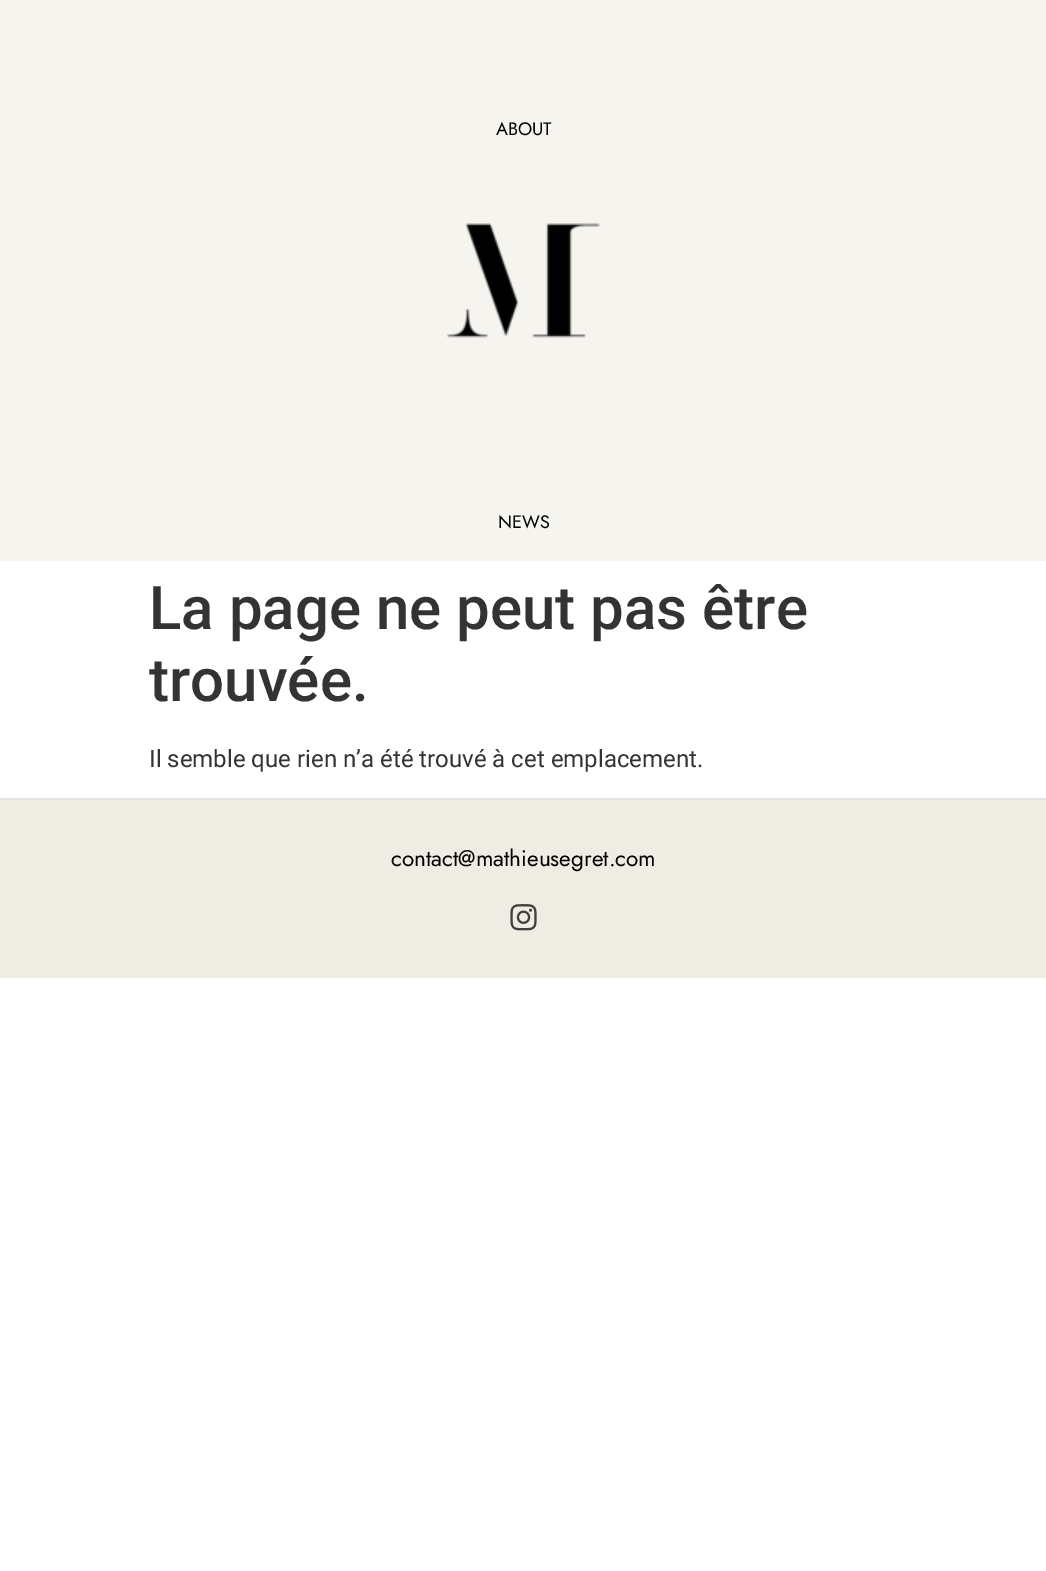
%!PS
<< /PageSize [1046 1571] >> setpagedevice
/mt/moveto load def
/li/lineto load def
/st/stroke load def
/lw/setlinewidth load def
/co { dup -16 bitshift 255 div exch dup -8 bitshift 255 and 255 div exch 255 and 255 div setrgbcolor } def
/fn { [ exch dup neg 0 0 3 -1 roll 0 0 ] selectfont } def
/tx { co fn moveto show } def
/bx { co rectfill } def
/im { 5 dict begin { /h /w /y /x /name } { exch def } forall
  gsave x y translate w h scale
  w h 8 [w 0 0 h 0 0] name (r) file false 3 colorimage grestore end } def
0 1571 translate 1 -1 scale
4 setmiterlimit
0 0 1046 1571 16#FFFFFF bx
0 0 1046 561 16#F6F4EE bx
(media/1.raw) 447 223 154 115 im
0 798 1046 180 16#EFECE4 bx
16#D6D6D6 co
1.5 lw
[1.5 1.5] 0 setdash
0 799 mt 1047 799 li st
(media/2.raw) 510 904 27 27 im
(ABOUT) 496 135 /Jost-Regular 18 16#000000 tx
(NEWS) 498 528 /Jost-Regular 18 16#000000 tx
(La page ne peut pas être) 149 629 /Roboto-Medium 60 16#333333 tx
(trouvée.) 149 701 /Roboto-Medium 60 16#333333 tx
(Il semble que rien n’a été trouvé à cet emplacement.) 149 767 /Roboto-Regular 24 16#333333 tx
(contact@mathieusegret.com) 391 866 /Jost-Regular 22.5 16#000000 tx
showpage
